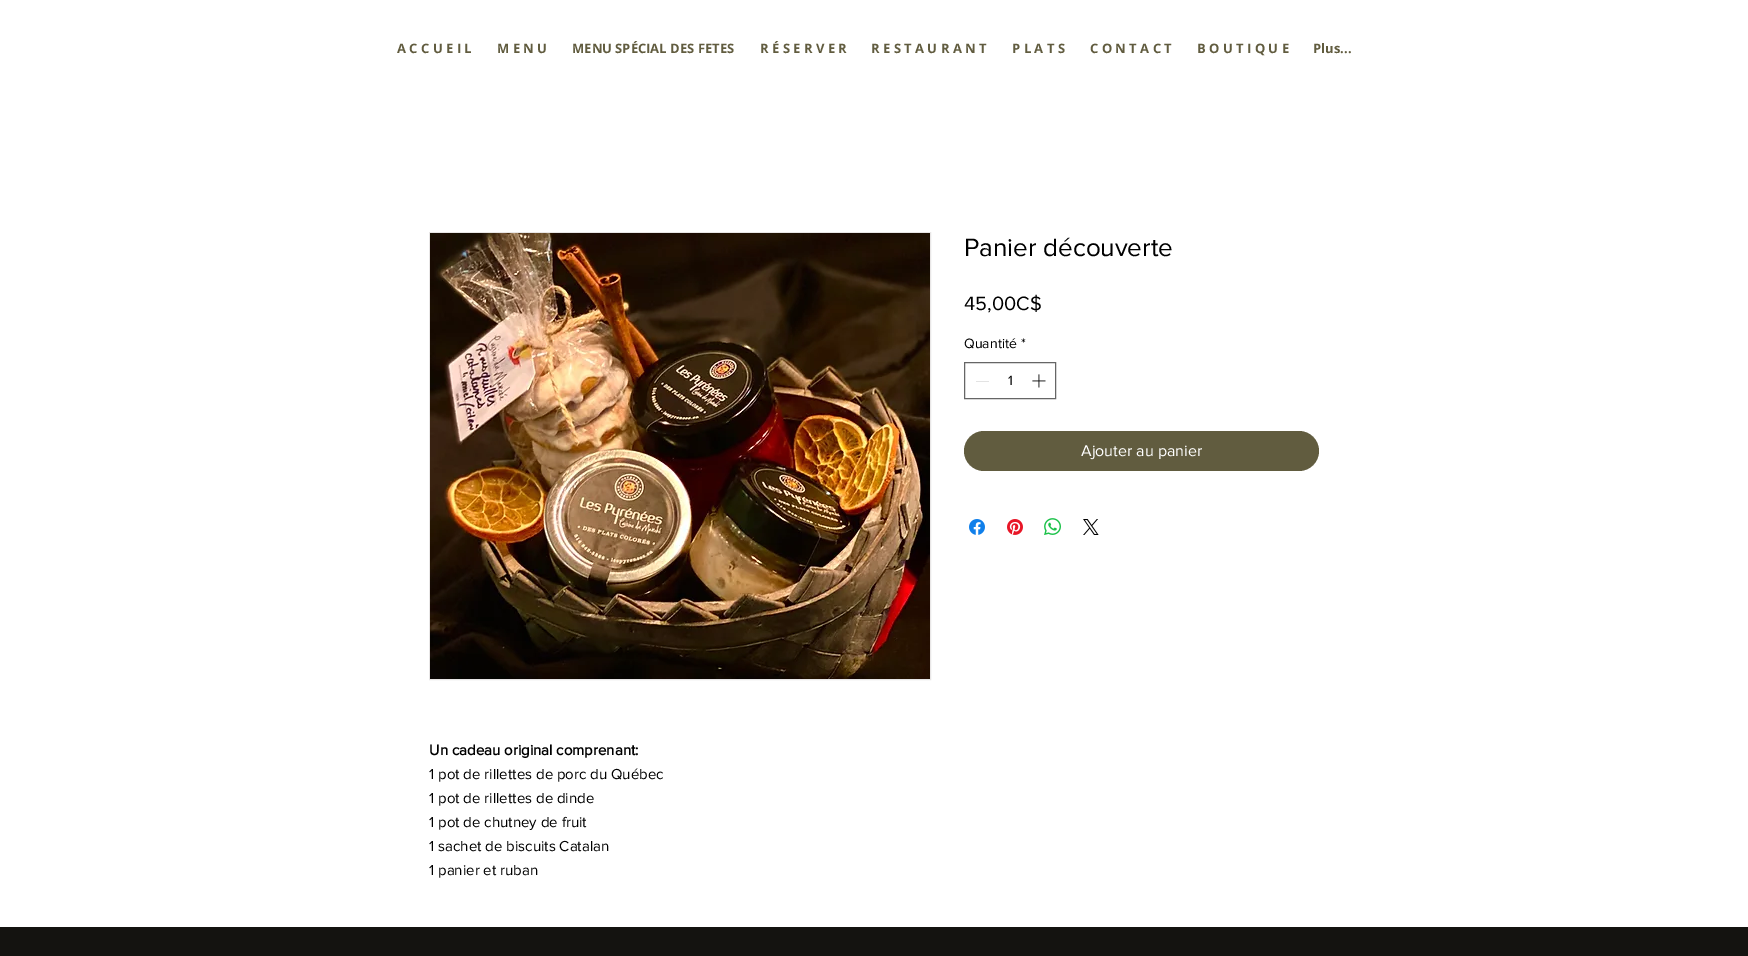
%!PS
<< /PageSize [1748 956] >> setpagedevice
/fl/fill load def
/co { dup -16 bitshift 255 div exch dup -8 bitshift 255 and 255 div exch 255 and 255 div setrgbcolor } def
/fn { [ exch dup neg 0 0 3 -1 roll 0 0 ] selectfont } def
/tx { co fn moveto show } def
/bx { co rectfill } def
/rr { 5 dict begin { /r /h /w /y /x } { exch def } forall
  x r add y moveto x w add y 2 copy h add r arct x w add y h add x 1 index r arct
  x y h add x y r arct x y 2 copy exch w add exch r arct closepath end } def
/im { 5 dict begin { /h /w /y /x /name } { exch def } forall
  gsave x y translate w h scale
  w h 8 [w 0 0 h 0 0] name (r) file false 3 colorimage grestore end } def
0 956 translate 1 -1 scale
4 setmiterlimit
0 0 1748 956 16#FFFFFF bx
16#666666 co
964.5 362.5 91 36 rectstroke
976 381 13 1 16#E3E3E3 bx
(media/1.raw) 1032 374 14 14 im
16#615C3F co
964 431 355 40 20 rr fl
(media/2.raw) 969 519 16 16 im
(media/3.raw) 1007 519 16 16 im
(media/4.raw) 1044 518 17 17 im
(media/5.raw) 1083 519 16 16 im
16#E8E6E6 co
429.5 232.5 501 447 rectstroke
(media/6.raw) 430 233 500 446 im
0 927 1748 29 16#141310 bx
(A C C U E I L) 397 53 /OpenSans-Bold 13 16#615C3F tx
(M E N U) 497 53 /OpenSans-Bold 13 16#615C3F tx
(MENU SPÉCIAL DES FETES) 572 53 /OpenSans-Bold 13 16#615C3F tx
(R É S E R V E R) 760 53 /OpenSans-Bold 13 16#615C3F tx
(R E S T A U R A N T) 871 53 /OpenSans-Bold 13 16#615C3F tx
(P L A T S) 1012 53 /OpenSans-Bold 13 16#615C3F tx
(C O N T A C T) 1090 53 /OpenSans-Bold 13 16#615C3F tx
(B O U T I Q U E) 1197 53 /OpenSans-Bold 13 16#615C3F tx
(Plus...) 1313 53 /OpenSans-Bold 13 16#615C3F tx
(Panier découverte) 964 256 /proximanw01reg-Regular 26 16#000000 tx
(45,00C$) 964 310 /proximanw01reg-Regular 20 16#000000 tx
(Quantité) 964 348 /proximanw01reg-Regular 14 16#000000 tx
(*) 1021 348 /proximanw01reg-Regular 14 16#000000 tx
(1) 1008 385 /proximanw01reg-Regular 14 16#000000 tx
(Ajouter au panier) 1081 456 /proximanw01reg-Regular 16 16#FFFFFF tx
(Un cadeau original comprenant:) 429 755 /proximanw01reg-Bold 15 16#000000 tx
(1 pot de rillettes de porc du Québec) 429 779 /proximanw01reg-Regular 15 16#000000 tx
(1 pot de rillettes de dinde) 429 803 /proximanw01reg-Regular 15 16#000000 tx
(1 pot de chutney de fruit) 429 827 /proximanw01reg-Regular 15 16#000000 tx
(1 sachet de biscuits Catalan) 429 851 /proximanw01reg-Regular 15 16#000000 tx
(1 panier et ruban) 429 875 /proximanw01reg-Regular 15 16#000000 tx
showpage
